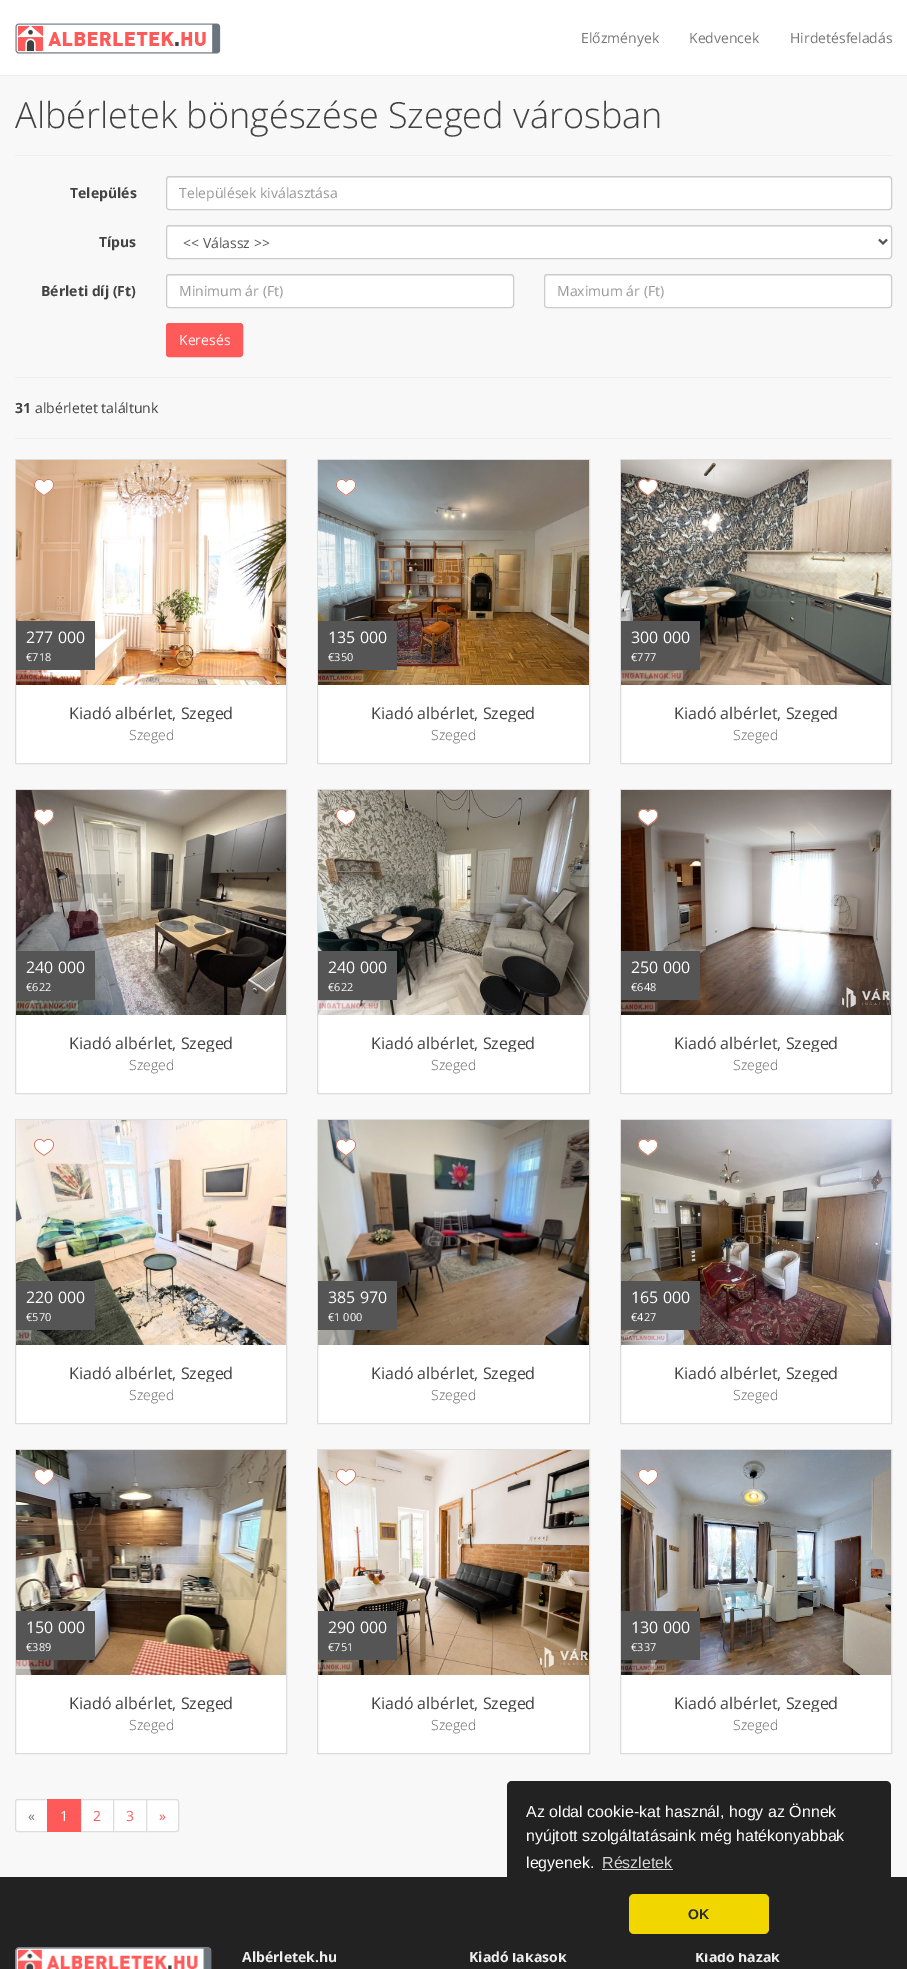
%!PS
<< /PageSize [907 1969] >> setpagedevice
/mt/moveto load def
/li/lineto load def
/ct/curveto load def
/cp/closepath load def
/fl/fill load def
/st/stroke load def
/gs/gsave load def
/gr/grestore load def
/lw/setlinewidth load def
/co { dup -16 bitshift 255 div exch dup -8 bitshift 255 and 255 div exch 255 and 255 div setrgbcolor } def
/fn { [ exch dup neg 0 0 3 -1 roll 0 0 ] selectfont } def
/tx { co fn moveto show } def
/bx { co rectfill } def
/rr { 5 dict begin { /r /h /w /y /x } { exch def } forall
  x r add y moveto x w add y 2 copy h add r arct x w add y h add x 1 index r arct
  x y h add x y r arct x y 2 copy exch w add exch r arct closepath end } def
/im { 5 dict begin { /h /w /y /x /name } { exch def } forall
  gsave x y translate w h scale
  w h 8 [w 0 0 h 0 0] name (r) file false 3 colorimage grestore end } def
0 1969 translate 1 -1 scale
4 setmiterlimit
0 0 907 1969 16#F8F8F8 bx
0 0 907 75 16#FFFFFF bx
0 75 907 1 16#EEEEEE bx
(media/1.raw) 15 23 206 31 im
15 155 877 1 16#EEEEEE bx
16#FFFFFF co
166 176 726 34 3 rr fl
16#ECECEC co
169 178 mt 889 178 li 890 178 891 179 891 180 ct 891 179 891 177 889 177 ct 169 177 li 167 177 167 179 167 180 ct 167 179 168 178 169 178 ct cp fl
16#CCCCCC co
166.5 176.5 725 33 2.5 rr st
16#FFFFFF co
166 225 726 34 3 rr fl
16#ECECEC co
169 227 mt 889 227 li 890 227 891 228 891 229 ct 891 228 891 226 889 226 ct 169 226 li 167 226 167 228 167 229 ct 167 228 168 227 169 227 ct cp fl
16#CCCCCC co
166.5 225.5 725 33 2.5 rr st
16#555555 co
2 lw
879 239.5 mt 883 243.5 li 887 239.5 li st
16#FFFFFF co
166 274 348 34 3 rr fl
16#ECECEC co
169 276 mt 511 276 li 512 276 513 277 513 278 ct 513 277 513 275 511 275 ct 169 275 li 167 276 li 167 278 li 167 277 168 276 169 276 ct cp fl
16#CCCCCC co
1 lw
166.5 274.5 347 33 2.5 rr st
16#FFFFFF co
544 274 348 34 3 rr fl
16#ECECEC co
547 276 mt 889 276 li 890 276 891 277 891 278 ct 891 277 891 275 889 275 ct 547 275 li 545 276 li 545 278 li 545 277 546 276 547 276 ct cp fl
16#CCCCCC co
544.5 274.5 347 33 2.5 rr st
16#FF5A5A co
166.5 323.5 76 33 2.5 rr gs fl gr
st
15 377 877 1 16#EEEEEE bx
15 438 877 1 16#EEEEEE bx
16 685 270 78 16#FFFFFF bx
16#DDDDDD co
15.5 459.5 271 304 rectstroke
(media/2.raw) 16 460 270 225 im
(media/3.raw) 34 479 20 17 im
16 621 79 49 16#555555 bx
318 685 271 78 16#FFFFFF bx
16#DDDDDD co
317.5 459.5 272 304 rectstroke
(media/4.raw) 318 460 271 225 im
(media/5.raw) 336 479 20 17 im
318 621 79 49 16#555555 bx
621 685 270 78 16#FFFFFF bx
16#DDDDDD co
620.5 459.5 271 304 rectstroke
(media/6.raw) 621 460 270 225 im
(media/7.raw) 638 479 20 17 im
621 621 79 49 16#555555 bx
16 1015 270 78 16#FFFFFF bx
16#DDDDDD co
15.5 789.5 271 304 rectstroke
(media/8.raw) 16 790 270 225 im
(media/9.raw) 34 809 20 17 im
16 951 79 49 16#555555 bx
318 1015 271 78 16#FFFFFF bx
16#DDDDDD co
317.5 789.5 272 304 rectstroke
(media/10.raw) 318 790 271 225 im
(media/11.raw) 336 809 20 17 im
318 951 79 49 16#555555 bx
621 1015 270 78 16#FFFFFF bx
16#DDDDDD co
620.5 789.5 271 304 rectstroke
(media/12.raw) 621 790 270 225 im
(media/13.raw) 638 809 20 17 im
621 951 79 49 16#555555 bx
16 1345 270 78 16#FFFFFF bx
16#DDDDDD co
15.5 1119.5 271 304 rectstroke
(media/14.raw) 16 1120 270 225 im
(media/15.raw) 34 1139 20 17 im
16 1281 79 49 16#555555 bx
318 1345 271 78 16#FFFFFF bx
16#DDDDDD co
317.5 1119.5 272 304 rectstroke
(media/16.raw) 318 1120 271 225 im
(media/17.raw) 336 1139 20 17 im
318 1281 79 49 16#555555 bx
621 1345 270 78 16#FFFFFF bx
16#DDDDDD co
620.5 1119.5 271 304 rectstroke
(media/18.raw) 621 1120 270 225 im
(media/19.raw) 638 1139 20 17 im
621 1281 79 49 16#555555 bx
16 1675 270 78 16#FFFFFF bx
16#DDDDDD co
15.5 1449.5 271 304 rectstroke
(media/20.raw) 16 1450 270 225 im
(media/21.raw) 34 1469 20 17 im
16 1611 79 49 16#555555 bx
318 1675 271 78 16#FFFFFF bx
16#DDDDDD co
317.5 1449.5 272 304 rectstroke
(media/22.raw) 318 1450 271 225 im
(media/23.raw) 336 1469 20 17 im
318 1611 79 49 16#555555 bx
621 1675 270 78 16#FFFFFF bx
16#DDDDDD co
620.5 1449.5 271 304 rectstroke
(media/24.raw) 621 1450 270 225 im
(media/25.raw) 638 1469 20 17 im
621 1611 79 49 16#555555 bx
16#FFFFFF co
18 1799.5 mt 47.5 1799.5 li 47.5 1831.5 li 18 1831.5 li 16.5 1831.5 15.5 1830.5 15.5 1829 ct 15.5 1802 li 15.5 1800.5 16.5 1799.5 18 1799.5 ct cp gs fl gr
16#DDDDDD co
st
16#FFFFFF co
80.5 1799.5 mt 113.5 1799.5 li 113.5 1831.5 li 80.5 1831.5 li cp gs fl gr
16#DDDDDD co
st
47 1799 34 33 16#FF5A5A bx
16#FFFFFF co
113.5 1799.5 mt 146.5 1799.5 li 146.5 1831.5 li 113.5 1831.5 li cp gs fl gr
16#DDDDDD co
st
16#FFFFFF co
146.5 1799.5 mt 176 1799.5 li 177.5 1799.5 178.5 1800.5 178.5 1802 ct 178.5 1829 li 178.5 1830.5 177.5 1831.5 176 1831.5 ct 146.5 1831.5 li cp gs fl gr
16#DDDDDD co
st
0 1877 907 92 16#222222 bx
(media/26.raw) 15 1947 197 22 im
(Előzmények) 581 43 /OpenSans-Regular 14 16#777777 tx
(Kedvencek) 689 43 /OpenSans-Regular 14 16#777777 tx
(Hirdetésfeladás) 790 43 /OpenSans-Regular 14 16#777777 tx
(Albérletek böngészése Szeged városban) 15 128 /OpenSans-Light 36 16#424242 tx
(Település) 70 198 /OpenSans-Bold 14 16#424242 tx
(Települések kiválasztása) 179 198 /OpenSans-Regular 14 16#999999 tx
(Típus) 99 247 /OpenSans-Bold 14 16#424242 tx
(<< Válassz >>) 183 248 /OpenSans-Regular 14 16#555555 tx
(Bérleti díj \(Ft\)) 41 296 /OpenSans-Bold 14 16#424242 tx
(Minimum ár \(Ft\)) 179 296 /OpenSans-Regular 14 16#999999 tx
(Maximum ár \(Ft\)) 557 296 /OpenSans-Regular 14 16#999999 tx
(Keresés) 179 345 /OpenSans-Regular 14 16#FFFFFF tx
(31) 15 413 /OpenSans-Bold 14 16#424242 tx
(albérletet találtunk) 35 413 /OpenSans-Regular 14 16#424242 tx
(277 000) 26 643 /OpenSans-Regular 16 16#FFFFFF tx
(€718) 26 661 /OpenSans-Regular 11 16#FFFFFF tx
gs
26 705 250 17 rectclip
(Kiadó albérlet, Szeged) 69 719 /OpenSans-Regular 16 16#424242 tx
gr
(Szeged) 129 740 /OpenSans-Light 14 16#616161 tx
(135 000) 328 643 /OpenSans-Regular 16 16#FFFFFF tx
(€350) 328 661 /OpenSans-Regular 11 16#FFFFFF tx
gs
328 705 251 17 rectclip
(Kiadó albérlet, Szeged) 371 719 /OpenSans-Regular 16 16#424242 tx
gr
(Szeged) 431 740 /OpenSans-Light 14 16#616161 tx
(300 000) 631 643 /OpenSans-Regular 16 16#FFFFFF tx
(€777) 631 661 /OpenSans-Regular 11 16#FFFFFF tx
gs
631 705 250 17 rectclip
(Kiadó albérlet, Szeged) 674 719 /OpenSans-Regular 16 16#424242 tx
gr
(Szeged) 733 740 /OpenSans-Light 14 16#616161 tx
(240 000) 26 973 /OpenSans-Regular 16 16#FFFFFF tx
(€622) 26 991 /OpenSans-Regular 11 16#FFFFFF tx
gs
26 1035 250 17 rectclip
(Kiadó albérlet, Szeged) 69 1049 /OpenSans-Regular 16 16#424242 tx
gr
(Szeged) 129 1070 /OpenSans-Light 14 16#616161 tx
(240 000) 328 973 /OpenSans-Regular 16 16#FFFFFF tx
(€622) 328 991 /OpenSans-Regular 11 16#FFFFFF tx
gs
328 1035 251 17 rectclip
(Kiadó albérlet, Szeged) 371 1049 /OpenSans-Regular 16 16#424242 tx
gr
(Szeged) 431 1070 /OpenSans-Light 14 16#616161 tx
(250 000) 631 973 /OpenSans-Regular 16 16#FFFFFF tx
(€648) 631 991 /OpenSans-Regular 11 16#FFFFFF tx
gs
631 1035 250 17 rectclip
(Kiadó albérlet, Szeged) 674 1049 /OpenSans-Regular 16 16#424242 tx
gr
(Szeged) 733 1070 /OpenSans-Light 14 16#616161 tx
(220 000) 26 1303 /OpenSans-Regular 16 16#FFFFFF tx
(€570) 26 1321 /OpenSans-Regular 11 16#FFFFFF tx
gs
26 1365 250 17 rectclip
(Kiadó albérlet, Szeged) 69 1379 /OpenSans-Regular 16 16#424242 tx
gr
(Szeged) 129 1400 /OpenSans-Light 14 16#616161 tx
(385 970) 328 1303 /OpenSans-Regular 16 16#FFFFFF tx
(€1 000) 328 1321 /OpenSans-Regular 11 16#FFFFFF tx
gs
328 1365 251 17 rectclip
(Kiadó albérlet, Szeged) 371 1379 /OpenSans-Regular 16 16#424242 tx
gr
(Szeged) 431 1400 /OpenSans-Light 14 16#616161 tx
(165 000) 631 1303 /OpenSans-Regular 16 16#FFFFFF tx
(€427) 631 1321 /OpenSans-Regular 11 16#FFFFFF tx
gs
631 1365 250 17 rectclip
(Kiadó albérlet, Szeged) 674 1379 /OpenSans-Regular 16 16#424242 tx
gr
(Szeged) 733 1400 /OpenSans-Light 14 16#616161 tx
(150 000) 26 1633 /OpenSans-Regular 16 16#FFFFFF tx
(€389) 26 1651 /OpenSans-Regular 11 16#FFFFFF tx
gs
26 1695 250 17 rectclip
(Kiadó albérlet, Szeged) 69 1709 /OpenSans-Regular 16 16#424242 tx
gr
(Szeged) 129 1730 /OpenSans-Light 14 16#616161 tx
(290 000) 328 1633 /OpenSans-Regular 16 16#FFFFFF tx
(€751) 328 1651 /OpenSans-Regular 11 16#FFFFFF tx
gs
328 1695 251 17 rectclip
(Kiadó albérlet, Szeged) 371 1709 /OpenSans-Regular 16 16#424242 tx
gr
(Szeged) 431 1730 /OpenSans-Light 14 16#616161 tx
(130 000) 631 1633 /OpenSans-Regular 16 16#FFFFFF tx
(€337) 631 1651 /OpenSans-Regular 11 16#FFFFFF tx
gs
631 1695 250 17 rectclip
(Kiadó albérlet, Szeged) 674 1709 /OpenSans-Regular 16 16#424242 tx
gr
(Szeged) 733 1730 /OpenSans-Light 14 16#616161 tx
(«) 28 1821 /OpenSans-Regular 14 16#777777 tx
(1) 60 1821 /OpenSans-Regular 14 16#FFFFFF tx
(2) 93 1821 /OpenSans-Regular 14 16#FF5A5A tx
(3) 126 1821 /OpenSans-Regular 14 16#FF5A5A tx
(») 159 1821 /OpenSans-Regular 14 16#FF5A5A tx
(Albérletek.hu) 242 1962 /OpenSans-Bold 14 16#EEEEEE tx
(Kiadó lakások) 469 1962 /OpenSans-Bold 14 16#EEEEEE tx
(Kiadó házak) 695 1962 /OpenSans-Bold 14 16#EEEEEE tx
16#222222 co
507 1781 384 172 5 rr fl
(Az oldal cookie-kat használ, hogy az Önnek) 526 1817 /LiberationSans-Regular 16 16#FFFFFF tx
(nyújtott szolgáltatásaink még hatékonyabbak) 526 1841 /LiberationSans-Regular 16 16#FFFFFF tx
(legyenek.) 526 1868 /LiberationSans-Regular 16 16#FFFFFF tx
(Részletek) 602 1868 /LiberationSans-Regular 16 16#D3D3D3 tx
602 1869 71 1 16#D3D3D3 bx
16#F1D600 co
629 1894 140 40 5 rr fl
(OK) 688 1919 /LiberationSans-Bold 14 16#262D30 tx
showpage
